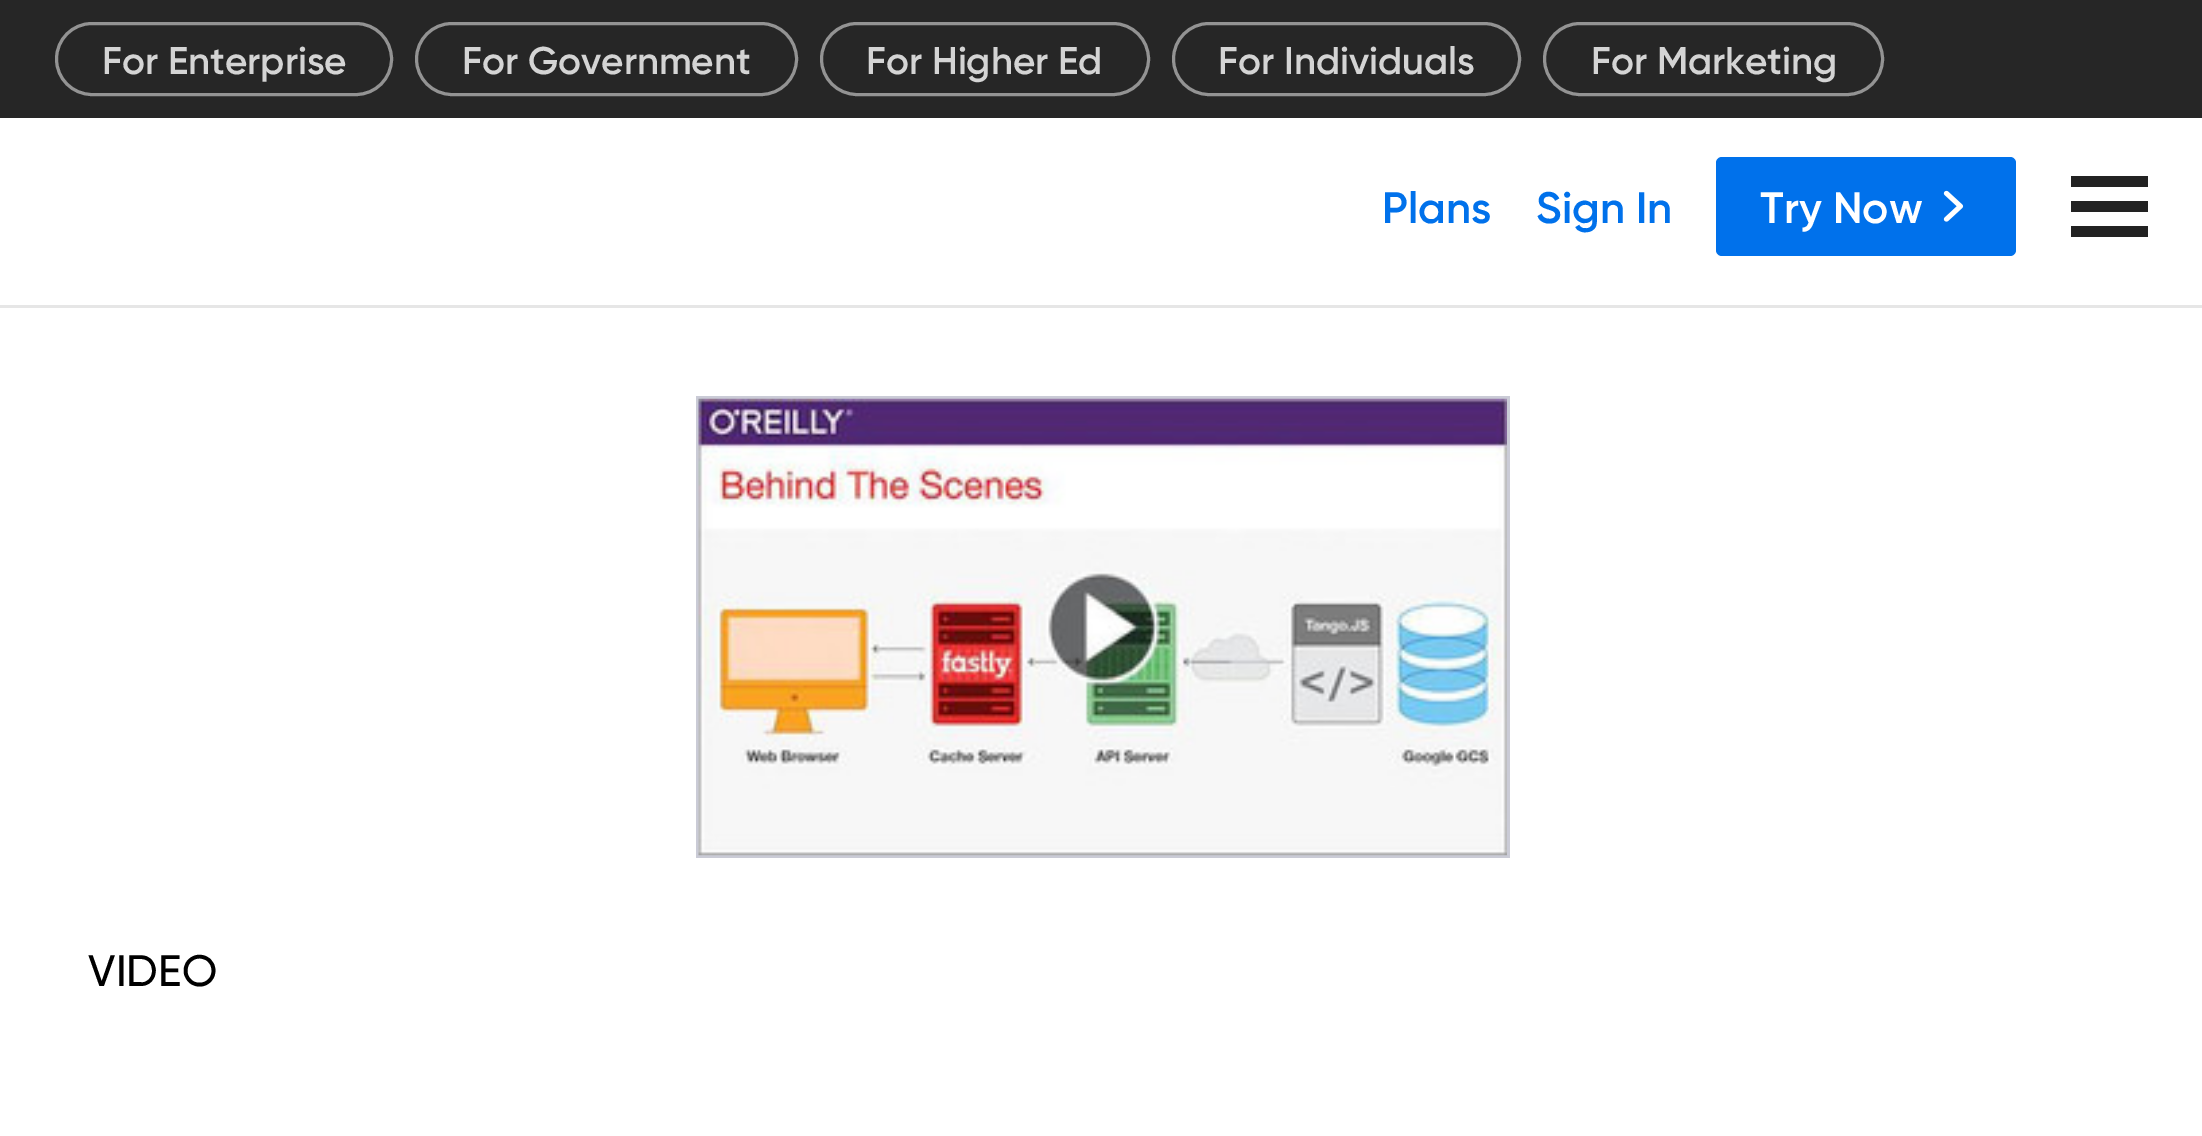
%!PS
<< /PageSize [2202 1136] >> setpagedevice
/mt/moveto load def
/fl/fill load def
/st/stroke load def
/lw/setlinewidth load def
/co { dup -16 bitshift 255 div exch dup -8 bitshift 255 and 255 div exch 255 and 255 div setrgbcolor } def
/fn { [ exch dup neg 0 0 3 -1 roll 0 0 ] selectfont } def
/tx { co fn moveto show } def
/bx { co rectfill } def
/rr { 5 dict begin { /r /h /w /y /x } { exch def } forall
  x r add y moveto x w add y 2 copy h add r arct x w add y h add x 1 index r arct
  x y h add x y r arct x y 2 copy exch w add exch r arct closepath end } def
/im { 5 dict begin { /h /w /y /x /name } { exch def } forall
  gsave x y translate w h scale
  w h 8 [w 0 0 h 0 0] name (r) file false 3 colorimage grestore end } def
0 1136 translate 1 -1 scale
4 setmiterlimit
0 0 2202 1136 16#FFFFFF bx
0 305 2202 3 16#E6E6E6 bx
0 0 2202 118 16#262626 bx
16#939393 co
3 lw
56.5 23.5 335 71 35.5 rr st
416.5 23.5 380 71 35.5 rr st
821.5 23.5 327 71 35.5 rr st
1173.5 23.5 346 71 35.5 rr st
1544.5 23.5 338 71 35.5 rr st
16#0071EB co
1716 157 300 99 6 rr fl
(media/1.raw) 1943 190 21 32 im
2071 201 77 11 16#222222 bx
2071 176 77 11 16#222222 bx
2071 226 77 11 16#222222 bx
696 396 814 462 16#CACBD6 bx
(media/2.raw) 698 398 809 458 im
(For Enterprise) 102 74 /Gilroy-SemiBold 38.5 16#D4D4D4 tx
(For Government) 462 74 /Gilroy-SemiBold 38.5 16#D4D4D4 tx
(For Higher Ed) 866 74 /Gilroy-SemiBold 38.5 16#D4D4D4 tx
(For Individuals) 1218 74 /Gilroy-SemiBold 38.5 16#D4D4D4 tx
(For Marketing) 1591 74 /Gilroy-SemiBold 38.5 16#D4D4D4 tx
(Plans) 1382 223 /Gilroy-SemiBold 44 16#0071EB tx
(Sign In) 1536 223 /Gilroy-SemiBold 44 16#0071EB tx
(Try Now) 1760 223 /Gilroy-SemiBold 44 16#FFFFFF tx
/Gilroy-Medium 44 fn
16#000000 co
88 986 mt .25 0 (VIDEO) ashow
showpage
